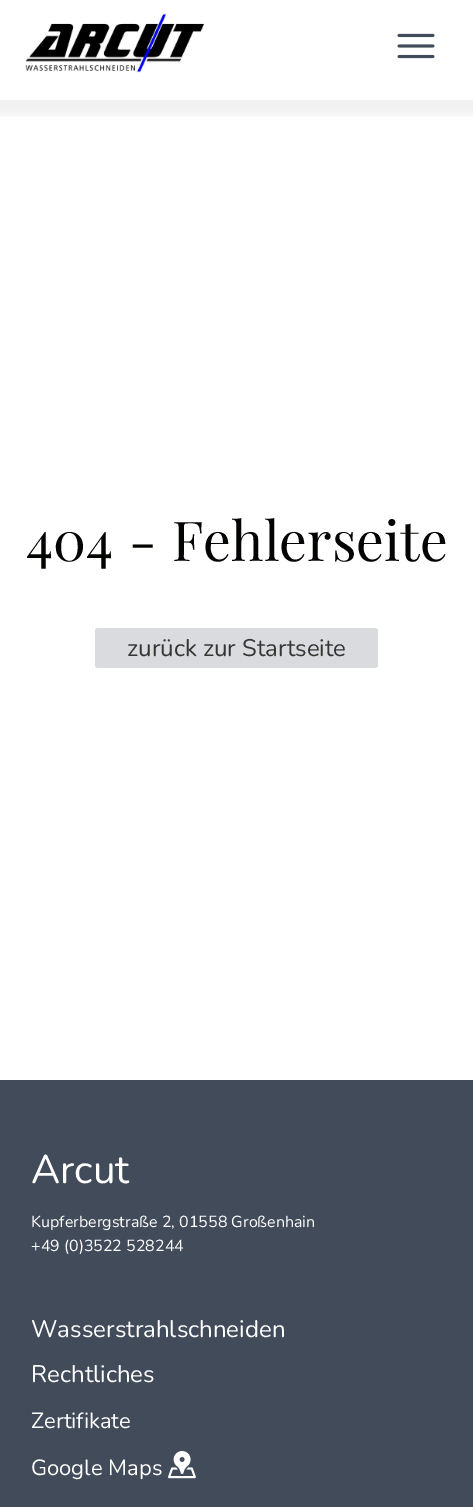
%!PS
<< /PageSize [473 1507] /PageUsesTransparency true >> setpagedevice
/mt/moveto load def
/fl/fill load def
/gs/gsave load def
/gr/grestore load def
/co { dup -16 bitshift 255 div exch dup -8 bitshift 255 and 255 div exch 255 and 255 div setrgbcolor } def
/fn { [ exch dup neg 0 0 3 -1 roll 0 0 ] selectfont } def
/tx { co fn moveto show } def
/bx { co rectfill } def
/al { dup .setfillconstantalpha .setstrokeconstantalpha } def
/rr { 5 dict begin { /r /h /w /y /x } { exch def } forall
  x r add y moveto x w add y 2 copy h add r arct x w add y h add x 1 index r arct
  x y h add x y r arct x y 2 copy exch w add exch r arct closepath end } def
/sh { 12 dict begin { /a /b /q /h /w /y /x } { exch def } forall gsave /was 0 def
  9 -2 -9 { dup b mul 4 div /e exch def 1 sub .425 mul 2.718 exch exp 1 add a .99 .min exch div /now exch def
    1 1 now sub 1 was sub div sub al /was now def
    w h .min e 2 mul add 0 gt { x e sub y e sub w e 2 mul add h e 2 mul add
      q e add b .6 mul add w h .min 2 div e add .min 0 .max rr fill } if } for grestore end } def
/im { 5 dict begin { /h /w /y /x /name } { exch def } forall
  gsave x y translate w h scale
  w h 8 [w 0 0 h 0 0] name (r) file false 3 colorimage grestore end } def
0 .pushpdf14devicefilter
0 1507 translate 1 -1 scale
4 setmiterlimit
0 0 473 1507 16#FFFFFF bx
gs
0 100 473 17 rectclip
16#000000 co
-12 -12 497 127 0 4 .06 sh
gr
(media/1.raw) 25 13 179 60 im
(media/2.raw) 397 33 38 26 im
16#D9DBDE co
95 628 283 40 3 rr fl
0 1080 473 427 16#414B5A bx
(media/3.raw) 168 1451 28 28 im
/PlayfairDisplay-Regular 55 fn
16#010400 co
26 561 mt 2 0 32 (404 - Fehlerseite) widthshow
(zurück zur Startseite) 127 656 /Nunito-Regular 24 16#343633 tx
(Arcut) 31 1183 /Nunito-Regular 40 16#FFFFFF tx
(Kupferbergstraße 2, 01558 Großenhain) 31 1227 /Nunito-Regular 16 16#FFFFFF tx
(+49 \(0\)3522 528244) 31 1251 /Nunito-Regular 16 16#FFFFFF tx
(Wasserstrahlschneiden) 31 1337 /Nunito-Regular 24 16#FFFFFF tx
(Rechtliches) 31 1382 /Nunito-Regular 24 16#FFFFFF tx
(Zertifikate) 31 1428 /Nunito-Regular 22 16#FFFFFF tx
(Google Maps) 31 1475 /Nunito-Regular 22 16#FFFFFF tx
.poppdf14devicefilter showpage
